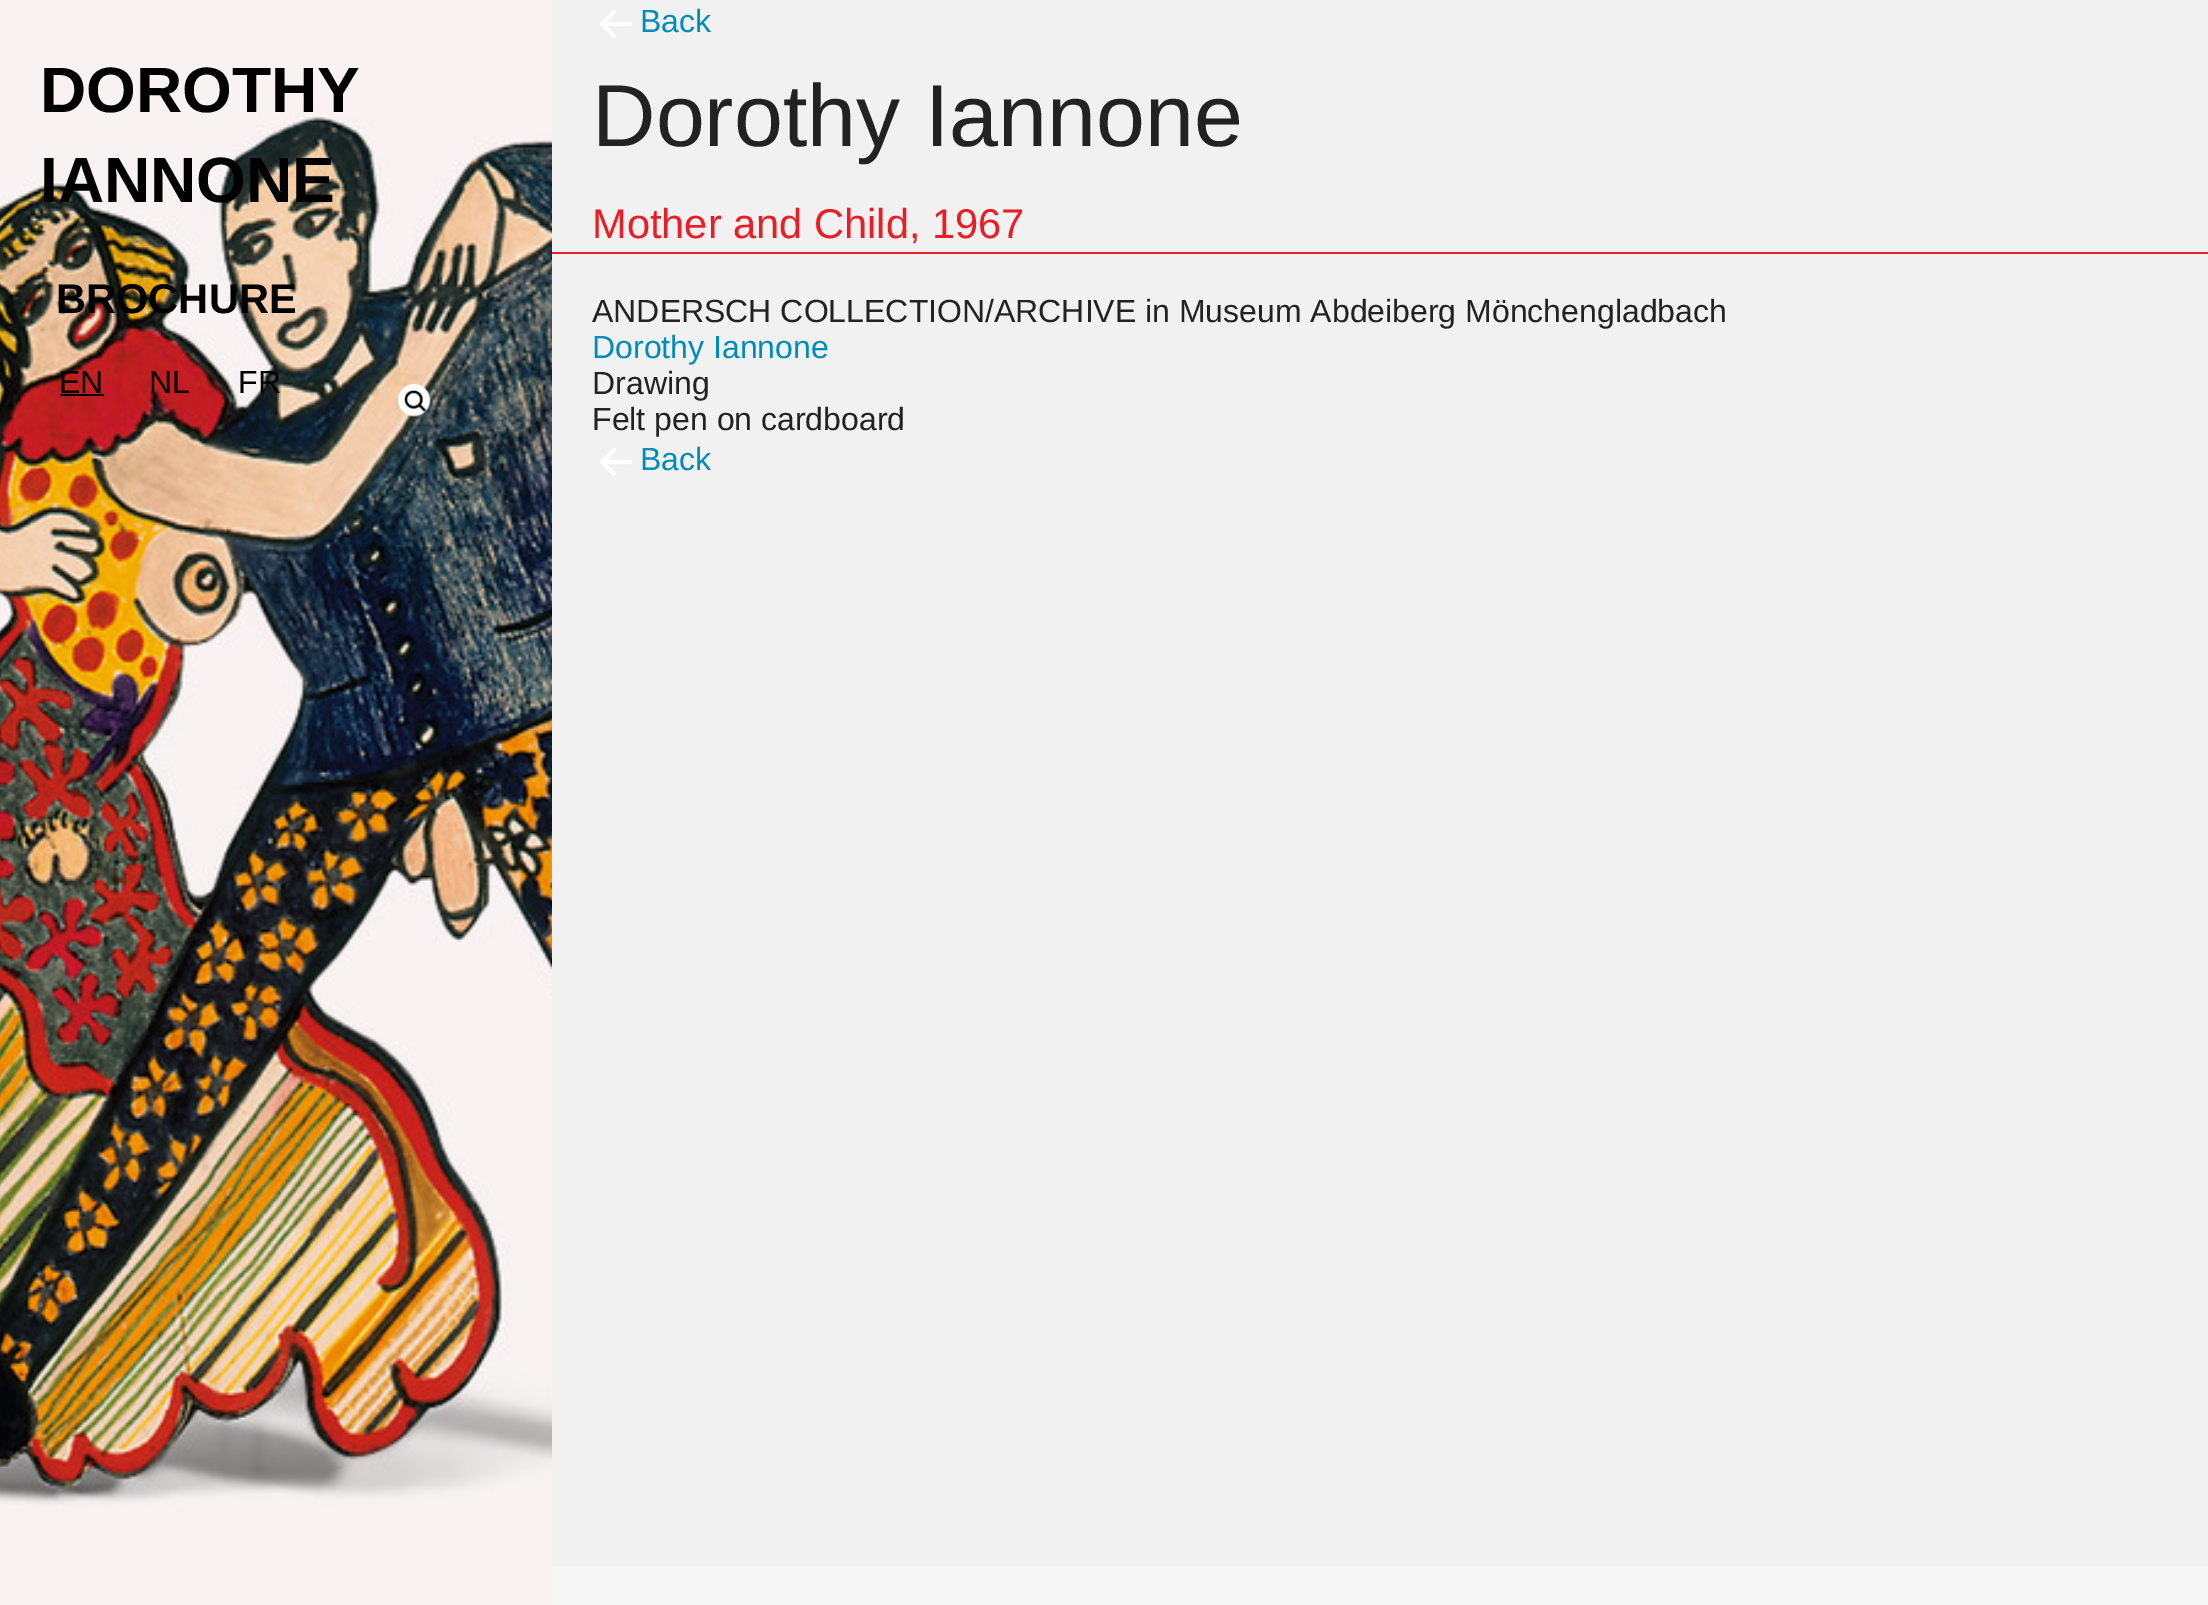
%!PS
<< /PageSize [2208 1605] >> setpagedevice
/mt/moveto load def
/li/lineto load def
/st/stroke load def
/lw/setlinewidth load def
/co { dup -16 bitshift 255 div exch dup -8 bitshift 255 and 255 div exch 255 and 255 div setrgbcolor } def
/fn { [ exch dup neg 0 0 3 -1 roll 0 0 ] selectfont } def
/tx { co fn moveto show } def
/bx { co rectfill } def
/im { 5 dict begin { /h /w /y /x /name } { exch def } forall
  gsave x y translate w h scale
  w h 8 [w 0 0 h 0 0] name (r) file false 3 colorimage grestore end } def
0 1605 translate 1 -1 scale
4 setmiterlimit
0 0 2208 1605 16#F7F7F7 bx
(media/1.raw) 0 0 552 1605 im
60 394 44 2 16#000000 bx
(media/2.raw) 398 384 33 33 im
552 0 1656 1566 16#F1F1F1 bx
16#FFFFFF co
4 lw
1 setlinecap
1 setlinejoin
602 24 mt 630 24 li 614 12 mt 602 24 li 614 36 li st
552 252 1656 2 16#EC1C24 bx
16#FFFFFF co
602 462 mt 630 462 li 614 450 mt 602 462 li 614 474 li st
(DOROTHY) 40 112 /LiberationSans-Bold 64 16#000000 tx
(IANNONE) 40 202 /LiberationSans-Bold 64 16#000000 tx
(BROCHURE) 56 313 /LiberationSans-Bold 41.6 16#000000 tx
(EN) 59 393 /LiberationSans-Regular 32 16#000000 tx
(NL) 149 393 /LiberationSans-Regular 32 16#000000 tx
(FR) 238 393 /LiberationSans-Regular 32 16#000000 tx
(Back) 640 32 /LiberationSans-Regular 32 16#008CBA tx
(Dorothy Iannone) 592 146 /LiberationSans-Regular 88 16#222222 tx
(Mother and Child, 1967) 592 238 /LiberationSans-Regular 41.6 16#EC1C24 tx
(ANDERSCH COLLECTION/ARCHIVE in Museum Abdeiberg Mönchengladbach) 592 322 /LiberationSans-Regular 32 16#222222 tx
(Dorothy Iannone) 592 358 /LiberationSans-Regular 32 16#008CBA tx
(Drawing) 592 394 /LiberationSans-Regular 32 16#222222 tx
(Felt pen on cardboard) 592 430 /LiberationSans-Regular 32 16#222222 tx
(Back) 640 470 /LiberationSans-Regular 32 16#008CBA tx
showpage
